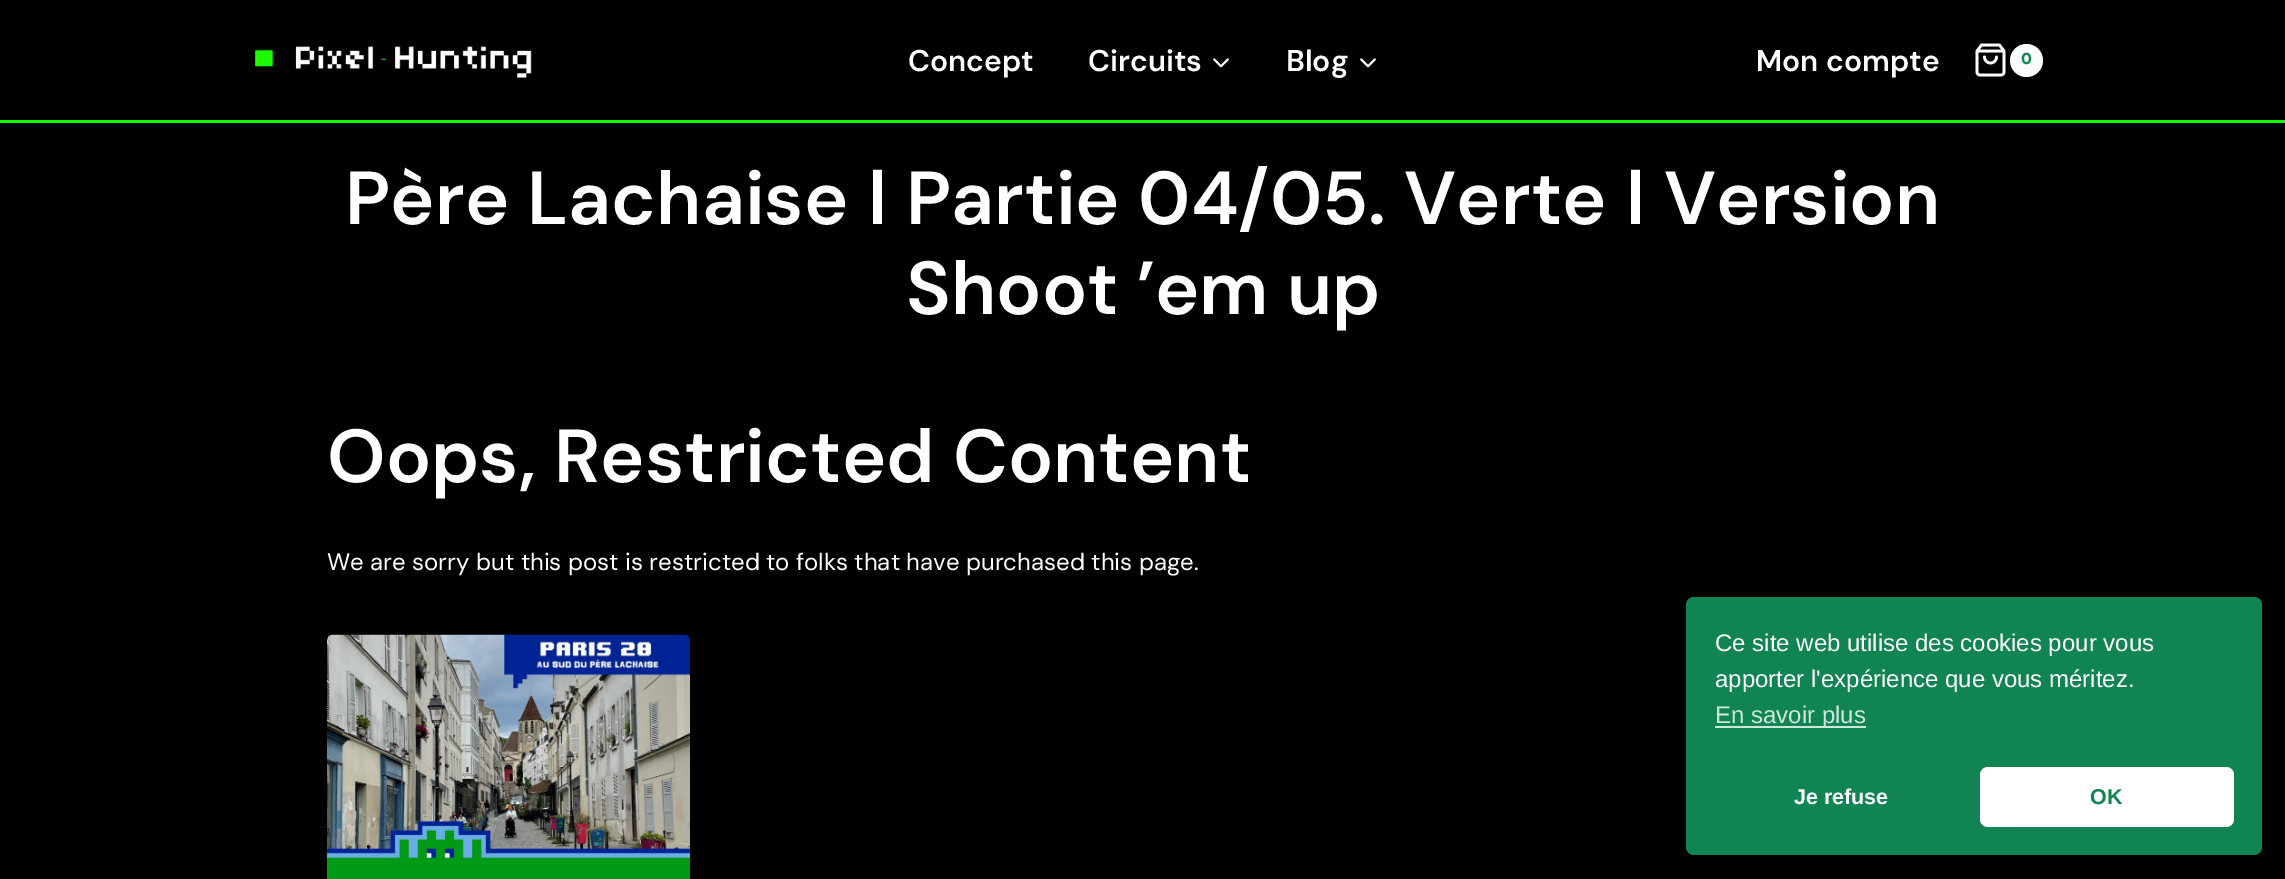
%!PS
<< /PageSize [2285 879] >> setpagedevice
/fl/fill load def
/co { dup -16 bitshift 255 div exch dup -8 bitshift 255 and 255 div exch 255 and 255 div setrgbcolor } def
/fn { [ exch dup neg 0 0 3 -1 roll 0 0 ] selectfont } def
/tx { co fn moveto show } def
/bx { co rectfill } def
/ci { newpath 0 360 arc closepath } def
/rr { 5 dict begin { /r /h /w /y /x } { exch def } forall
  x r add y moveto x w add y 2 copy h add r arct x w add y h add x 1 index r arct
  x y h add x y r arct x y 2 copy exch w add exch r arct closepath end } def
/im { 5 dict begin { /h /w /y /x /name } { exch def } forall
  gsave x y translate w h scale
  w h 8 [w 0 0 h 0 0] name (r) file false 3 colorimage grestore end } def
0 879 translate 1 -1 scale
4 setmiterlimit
0 0 2285 879 16#000000 bx
0 120 2285 3 16#00FF00 bx
(media/1.raw) 254 46 278 32 im
(media/2.raw) 1213 58 16 10 im
(media/2.raw) 1360 58 16 10 im
(media/3.raw) 1975 43 31 34 im
16#FBFCFC co
2026.5 60.5 16.5 ci fl
(media/4.raw) 327 634 363 245 im
16#108452 co
1686 597 576 258 8 rr fl
1715 726 151 2 16#CFE6DC bx
16#FFFFFF co
1980 767 254 60 8 rr fl
(Concept) 908 71 /DMSans-SemiBold 30 16#FFFFFF tx
(Circuits) 1088 71 /DMSans-SemiBold 30 16#FFFFFF tx
(Blog) 1286 71 /DMSans-SemiBold 30 16#FFFFFF tx
(Mon compte) 1756 71 /DMSans-SemiBold 30 16#FFFFFF tx
(0) 2021 64 /DMSans-Black 16 16#108452 tx
(Père Lachaise) 345 224 /DMSans-SemiBold 75 16#FFFFFF tx
(ǀ) 867 224 /LiberationSans-Bold 75 16#FFFFFF tx
(Partie 04/05. Verte) 906 224 /DMSans-SemiBold 75 16#FFFFFF tx
(ǀ) 1625 224 /LiberationSans-Bold 75 16#FFFFFF tx
(Version) 1664 224 /DMSans-SemiBold 75 16#FFFFFF tx
(Shoot ’em up) 906 314 /DMSans-SemiBold 75 16#FFFFFF tx
(Oops, Restricted Content) 327 482 /DMSans-SemiBold 75 16#FFFFFF tx
(We are sorry but this post is restricted to folks that have purchased this page.) 327 570 /DMSans-Regular 24 16#FFFFFF tx
(Ce site web utilise des cookies pour vous) 1715 651 /LiberationSans-Regular 24 16#FFFFFF tx
(apporter l'expérience que vous méritez.) 1715 687 /LiberationSans-Regular 24 16#FFFFFF tx
(En savoir plus) 1715 723 /LiberationSans-Regular 24 16#CFE6DC tx
(Je refuse) 1794 804 /LiberationSans-Bold 21.5 16#FFFFFF tx
(OK) 2090 804 /LiberationSans-Bold 21.5 16#108452 tx
showpage
